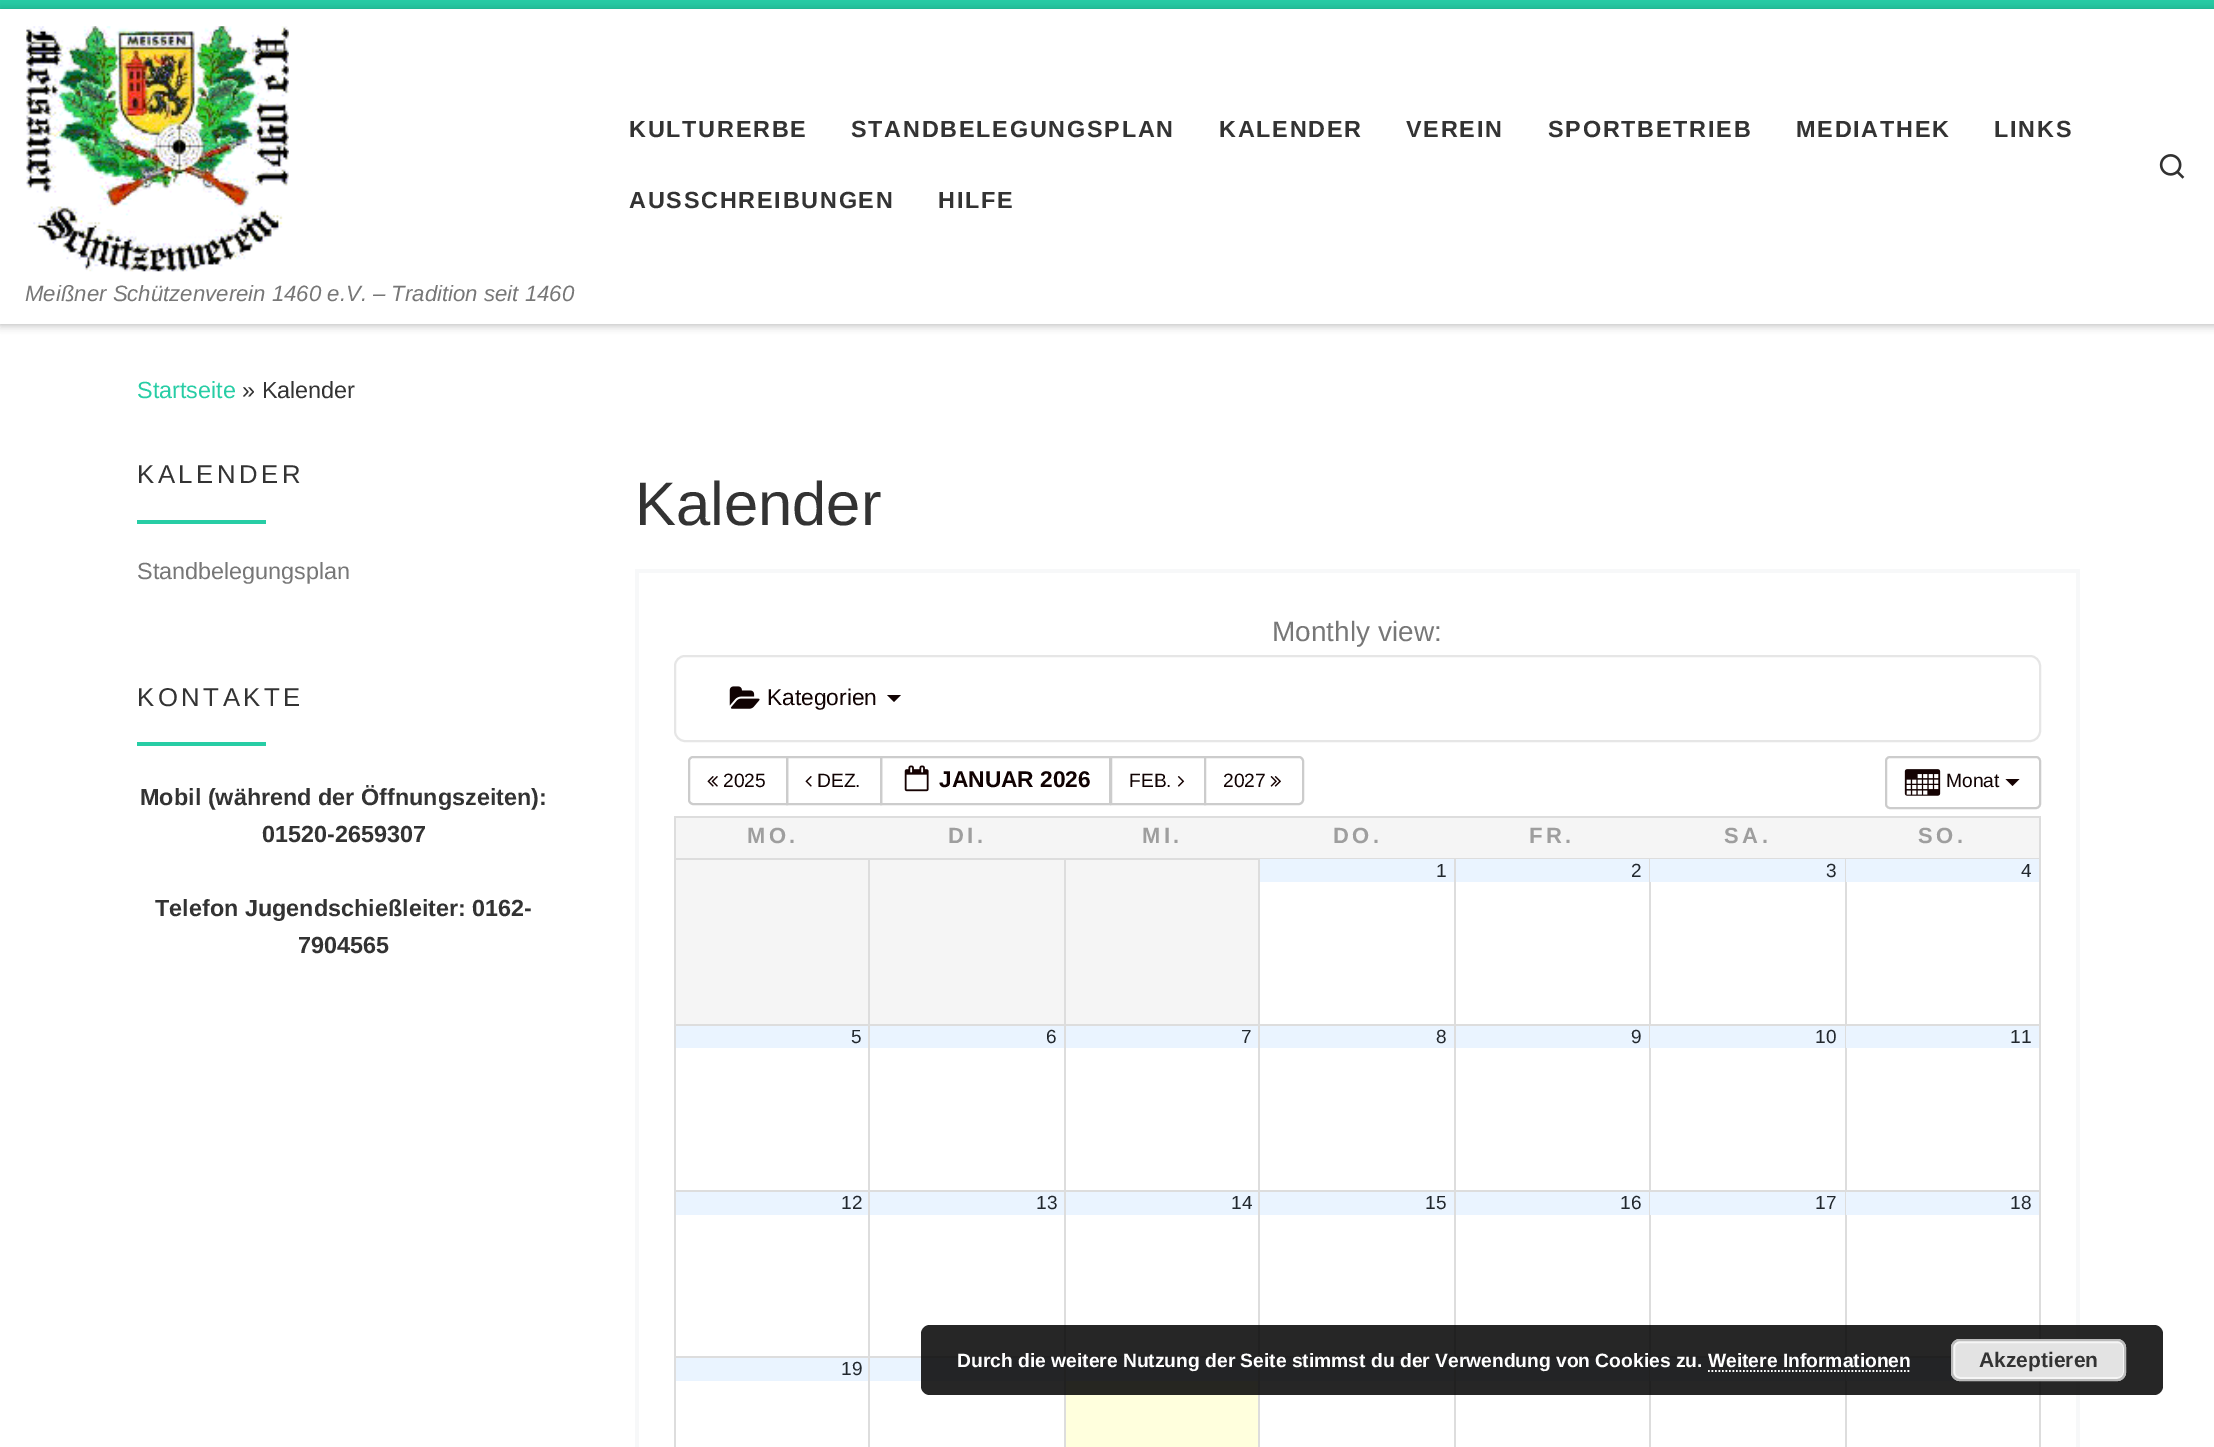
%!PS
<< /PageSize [2214 1447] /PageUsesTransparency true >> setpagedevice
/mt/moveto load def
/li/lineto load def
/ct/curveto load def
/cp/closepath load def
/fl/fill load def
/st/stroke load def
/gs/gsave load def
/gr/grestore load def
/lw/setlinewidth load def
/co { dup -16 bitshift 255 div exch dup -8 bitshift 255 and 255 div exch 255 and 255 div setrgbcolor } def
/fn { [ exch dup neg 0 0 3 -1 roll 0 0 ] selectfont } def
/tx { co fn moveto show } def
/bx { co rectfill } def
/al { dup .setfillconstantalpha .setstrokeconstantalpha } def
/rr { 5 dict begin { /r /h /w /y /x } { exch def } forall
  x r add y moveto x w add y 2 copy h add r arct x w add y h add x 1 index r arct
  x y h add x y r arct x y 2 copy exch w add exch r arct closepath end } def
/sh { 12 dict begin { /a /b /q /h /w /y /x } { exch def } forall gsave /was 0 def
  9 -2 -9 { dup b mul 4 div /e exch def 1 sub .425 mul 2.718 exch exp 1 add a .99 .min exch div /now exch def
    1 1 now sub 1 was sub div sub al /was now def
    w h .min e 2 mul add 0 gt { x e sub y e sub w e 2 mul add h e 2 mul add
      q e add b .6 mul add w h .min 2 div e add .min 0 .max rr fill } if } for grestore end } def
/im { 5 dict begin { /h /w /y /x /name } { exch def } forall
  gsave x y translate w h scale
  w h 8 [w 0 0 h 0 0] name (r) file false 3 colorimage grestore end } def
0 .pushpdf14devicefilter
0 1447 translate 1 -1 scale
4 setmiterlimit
0 0 2214 1447 16#FFFFFF bx
16#666666 co
0 4 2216 325 0 2 .08 sh
0 0 2214 9 16#27CDA5 bx
16#EFEFEF co
0 324 mt 0 326 li 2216 326 li 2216 11 li 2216 324 li cp fl
16#000000 co
0 9 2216 315 0 4.5 .2 sh
0 9 2214 315 16#FFFFFF bx
(media/1.raw) 2159 154 26 25 im
(media/2.raw) 26 26 263 246 im
137 520 129 4 16#27CDA5 bx
137 742 129 4 16#27CDA5 bx
635 569 1444 4 16#F7F8F9 bx
2076 569 4 878 16#F7F8F9 bx
635 569 4 878 16#F7F8F9 bx
16#E6E6E6 co
2 lw
675 656 1365 85 10 rr st
(media/3.raw) 729 686 31 23 im
16#100202 co
887 695 mt 901 695 li 894 702 li cp fl
16#CCCCCC co
693 757 mt 787 757 li 787 804 li 693 804 li 691 804 689 802 689 800 ct 689 761 li 689 759 691 757 693 757 ct cp st
(media/4.raw) 707 776 11 11 im
787 757 94 47 rectstroke
(media/5.raw) 805 776 7 11 im
881 757 229 47 rectstroke
(media/6.raw) 904 765 25 27 im
1111 757 94 47 rectstroke
(media/7.raw) 1177 776 8 11 im
16#FFFFFF co
1205 757 mt 1299 757 li 1301 757 1303 759 1303 761 ct 1303 800 li 1303 802 1301 804 1299 804 ct 1205 804 li cp gs fl gr
16#CCCCCC co
st
(media/8.raw) 1270 776 11 11 im
1886 757 154 51 4 rr st
(media/9.raw) 1904 769 37 27 im
16#150202 co
2005.5 779 mt 2019.5 779 li 2012.5 786 li cp fl
674 816 1367 2 16#DDDDDD bx
2039 816 2 631 16#DDDDDD bx
674 816 2 631 16#DDDDDD bx
676 818 1363 40 16#F5F5F5 bx
676 860 192 164 16#F5F5F5 bx
1845 858 196 2 16#DDDDDD bx
1845 1024 196 2 16#DDDDDD bx
1845 1190 196 2 16#DDDDDD bx
1845 1356 106 2 16#DDDDDD bx
1845 1356 2 91 16#DDDDDD bx
1649 1356 197 2 16#DDDDDD bx
1845 1190 2 168 16#DDDDDD bx
1649 1190 197 2 16#DDDDDD bx
1845 1024 2 168 16#DDDDDD bx
1649 1024 197 2 16#DDDDDD bx
1845 858 2 168 16#DDDDDD bx
1649 858 197 2 16#DDDDDD bx
1649 1356 2 91 16#DDDDDD bx
1454 1356 196 2 16#DDDDDD bx
1649 1190 2 168 16#DDDDDD bx
1454 1190 196 2 16#DDDDDD bx
1649 1024 2 168 16#DDDDDD bx
1454 1024 196 2 16#DDDDDD bx
1649 858 2 168 16#DDDDDD bx
1454 858 196 2 16#DDDDDD bx
1454 1356 2 91 16#DDDDDD bx
1258 1356 198 2 16#DDDDDD bx
1454 1190 2 168 16#DDDDDD bx
1258 1190 198 2 16#DDDDDD bx
1454 1024 2 168 16#DDDDDD bx
1258 1024 198 2 16#DDDDDD bx
1454 858 2 168 16#DDDDDD bx
1258 858 198 2 16#DDDDDD bx
1258 1356 2 91 16#DDDDDD bx
1064 1356 196 2 16#DDDDDD bx
1258 1190 2 168 16#DDDDDD bx
1064 1190 196 2 16#DDDDDD bx
1258 1024 2 168 16#DDDDDD bx
1064 1024 196 2 16#DDDDDD bx
1258 858 2 168 16#DDDDDD bx
1064 858 196 2 16#DDDDDD bx
1064 1356 2 91 16#DDDDDD bx
868 1356 198 2 16#DDDDDD bx
1064 1190 2 168 16#DDDDDD bx
868 1190 198 2 16#DDDDDD bx
1064 1024 2 168 16#DDDDDD bx
868 1024 198 2 16#DDDDDD bx
1064 858 2 168 16#DDDDDD bx
868 858 198 2 16#DDDDDD bx
868 1356 2 91 16#DDDDDD bx
674 1356 196 2 16#DDDDDD bx
868 1190 2 168 16#DDDDDD bx
674 1190 196 2 16#DDDDDD bx
868 1024 2 168 16#DDDDDD bx
674 1024 196 2 16#DDDDDD bx
868 858 2 168 16#DDDDDD bx
674 858 196 2 16#DDDDDD bx
870 860 194 164 16#F5F5F5 bx
1066 860 192 164 16#F5F5F5 bx
1260 859 194 23 16#EAF4FF bx
1456 859 193 23 16#EAF4FF bx
1650 859 195 23 16#EAF4FF bx
1846 859 193 23 16#EAF4FF bx
676 1026 192 22 16#EAF4FF bx
870 1026 194 22 16#EAF4FF bx
1066 1026 192 22 16#EAF4FF bx
1260 1026 194 22 16#EAF4FF bx
1456 1026 193 22 16#EAF4FF bx
1650 1026 195 22 16#EAF4FF bx
1846 1026 193 22 16#EAF4FF bx
676 1192 192 23 16#EAF4FF bx
870 1192 194 23 16#EAF4FF bx
1066 1192 192 23 16#EAF4FF bx
1260 1192 194 23 16#EAF4FF bx
1456 1192 193 23 16#EAF4FF bx
1650 1192 195 23 16#EAF4FF bx
1846 1192 193 23 16#EAF4FF bx
676 1358 192 23 16#EAF4FF bx
870 1358 194 23 16#EAF4FF bx
1066 1381 192 66 16#FFFFDD bx
1066 1358 192 23 16#EAF4FF bx
1260 1358 194 23 16#EAF4FF bx
1456 1358 193 23 16#EAF4FF bx
1650 1358 195 23 16#EAF4FF bx
1846 1358 114 23 16#EAF4FF bx
0.85 al
16#000000 co
921 1325 1242 70 9 rr fl
1 al
16#E3E3E3 co
1951 1339 175 42 9 rr fl
16#F6F6F6 co
1954 1342 170 36 6 rr st
16#BBBBBB co
1952 1340 173 40 8 rr st
16#FFFFFF co
1.8 lw
[1.75 1.75] 0 setdash
1708 1371 mt 1911 1371 li st
/LiberationSans-Bold 23.4 fn
16#333333 co
629 137 mt 1.75 0 (KULTURERBE) ashow
851 137 mt 1.75 0 (STANDBELEGUNGSPLAN) ashow
1219 137 mt 1.75 0 (KALENDER) ashow
1406 137 mt 1.75 0 (VEREIN) ashow
1548 137 mt 1.75 0 (SPORTBETRIEB) ashow
1796 137 mt 1.75 0 (MEDIATHEK) ashow
1994 137 mt 1.75 0 (LINKS) ashow
629 208 mt 1.75 0 (AUSSCHREIBUNGEN) ashow
938 208 mt 1.75 0 (HILFE) ashow
(Meißner Schützenverein 1460 e.V. – Tradition seit 1460) 25 301 /LiberationSans-Italic 22.2 16#777777 tx
(Startseite) 137 398 /LiberationSans-Regular 23.4 16#27CDA5 tx
(» Kalender) 242 398 /LiberationSans-Regular 23.4 16#333333 tx
/LiberationSans-Regular 25.75 fn
137 483 mt 3.5 0 (KALENDER) ashow
(Standbelegungsplan) 137 579 /LiberationSans-Regular 23.4 16#777777 tx
/LiberationSans-Regular 25.75 fn
16#333333 co
137 706 mt 3.5 0 (KONTAKTE) ashow
(Mobil \(während der Öffnungszeiten\):) 140 805 /LiberationSans-Bold 23.4 16#333333 tx
(01520-2659307) 262 842 /LiberationSans-Bold 23.4 16#333333 tx
(Telefon Jugendschießleiter:) 155 916 /LiberationSans-Bold 23.4 16#333333 tx
(0162-) 472 916 /LiberationSans-Bold 23.4 16#333333 tx
(7904565) 298 953 /LiberationSans-Bold 23.4 16#333333 tx
(Kalender) 635 525 /LiberationSans-Regular 61.5 16#333333 tx
(Monthly view:) 1272 641 /LiberationSans-Regular 28 16#777777 tx
(Kategorien) 767 705 /LiberationSans-Regular 22.75 16#100202 tx
(2025) 723 787 /LiberationSans-Regular 19.25 16#100202 tx
(DEZ.) 817 787 /LiberationSans-Regular 19.25 16#100202 tx
(JANUAR 2026) 939 787 /LiberationSans-Bold 22.75 16#100202 tx
(FEB.) 1129 787 /LiberationSans-Regular 19.25 16#100202 tx
(2027) 1223 787 /LiberationSans-Regular 19.25 16#100202 tx
(Monat) 1946 787 /LiberationSans-Regular 19.25 16#100202 tx
/LiberationSans-Bold 22 fn
16#9E9E9E co
747 843 mt 3.5 0 (MO.) ashow
948 843 mt 3.5 0 (DI.) ashow
1142 843 mt 3.5 0 (MI.) ashow
1333 843 mt 3.5 0 (DO.) ashow
1529 843 mt 3.5 0 (FR.) ashow
1724 843 mt 3.5 0 (SA.) ashow
1918 843 mt 3.5 0 (SO.) ashow
(1) 1436 877 /LiberationSans-Regular 19 16#22282E tx
(2) 1631 877 /LiberationSans-Regular 19 16#22282E tx
(3) 1826 877 /LiberationSans-Regular 19 16#22282E tx
(4) 2021 877 /LiberationSans-Regular 19 16#22282E tx
(5) 851 1043 /LiberationSans-Regular 19 16#22282E tx
(6) 1046 1043 /LiberationSans-Regular 19 16#22282E tx
(7) 1241 1043 /LiberationSans-Regular 19 16#22282E tx
(8) 1436 1043 /LiberationSans-Regular 19 16#22282E tx
(9) 1631 1043 /LiberationSans-Regular 19 16#22282E tx
(10) 1815 1043 /LiberationSans-Regular 19 16#22282E tx
(11) 2010 1043 /LiberationSans-Regular 19 16#22282E tx
(12) 841 1209 /LiberationSans-Regular 19 16#22282E tx
(13) 1036 1209 /LiberationSans-Regular 19 16#22282E tx
(14) 1231 1209 /LiberationSans-Regular 19 16#22282E tx
(15) 1425 1209 /LiberationSans-Regular 19 16#22282E tx
(16) 1620 1209 /LiberationSans-Regular 19 16#22282E tx
(17) 1815 1209 /LiberationSans-Regular 19 16#22282E tx
(18) 2010 1209 /LiberationSans-Regular 19 16#22282E tx
(19) 841 1375 /LiberationSans-Regular 19 16#22282E tx
(Durch die weitere Nutzung der Seite stimmst du der Verwendung von Cookies zu. Weitere Informationen) 957 1367 /LiberationSans-Bold 19.25 16#FFFFFF tx
(Akzeptieren) 1979 1367 /LiberationSans-Bold 21 16#333333 tx
.poppdf14devicefilter showpage
